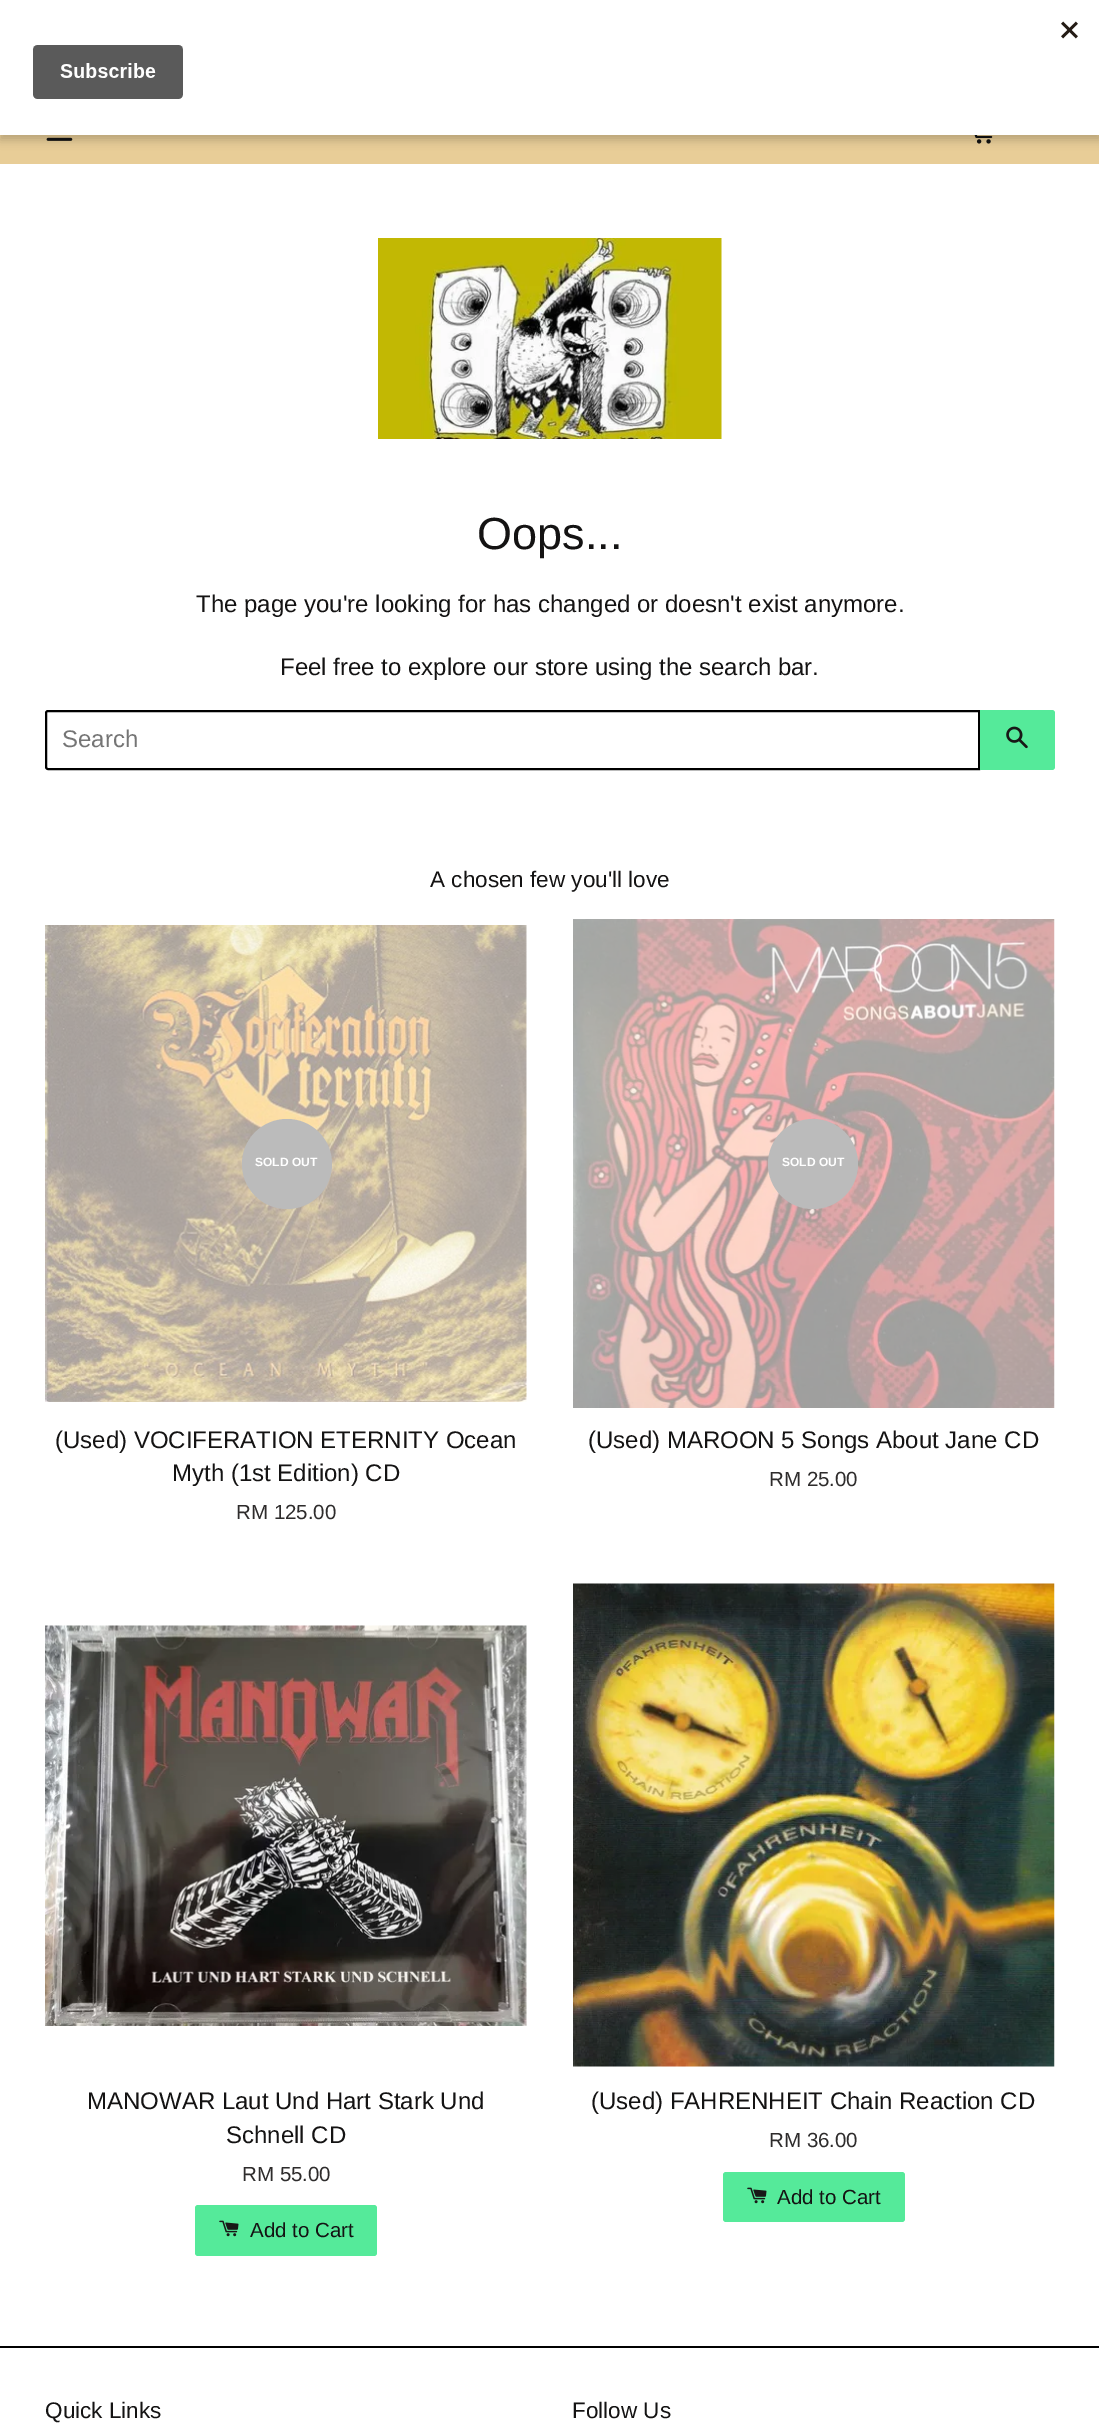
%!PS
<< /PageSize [1099 2427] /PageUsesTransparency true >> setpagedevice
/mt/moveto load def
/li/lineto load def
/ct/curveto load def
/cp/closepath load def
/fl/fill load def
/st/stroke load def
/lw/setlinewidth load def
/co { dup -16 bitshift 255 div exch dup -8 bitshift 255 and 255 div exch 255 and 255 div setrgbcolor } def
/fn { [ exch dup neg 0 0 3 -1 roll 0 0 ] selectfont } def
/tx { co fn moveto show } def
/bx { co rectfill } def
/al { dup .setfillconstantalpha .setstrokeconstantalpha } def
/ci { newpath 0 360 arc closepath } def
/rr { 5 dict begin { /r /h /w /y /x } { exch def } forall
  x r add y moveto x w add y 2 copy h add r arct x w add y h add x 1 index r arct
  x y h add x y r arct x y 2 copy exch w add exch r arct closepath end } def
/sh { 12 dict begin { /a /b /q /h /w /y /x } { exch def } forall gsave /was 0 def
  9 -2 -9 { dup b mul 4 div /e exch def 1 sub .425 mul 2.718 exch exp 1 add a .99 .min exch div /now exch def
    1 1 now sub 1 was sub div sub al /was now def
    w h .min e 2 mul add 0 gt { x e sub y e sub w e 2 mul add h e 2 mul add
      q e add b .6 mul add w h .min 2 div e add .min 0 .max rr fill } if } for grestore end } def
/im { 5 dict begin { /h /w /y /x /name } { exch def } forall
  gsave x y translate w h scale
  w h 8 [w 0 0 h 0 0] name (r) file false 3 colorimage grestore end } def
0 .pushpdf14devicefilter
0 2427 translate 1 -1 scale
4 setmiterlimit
0 0 1099 2427 16#FFFFFF bx
0 135 1099 29 16#E8CD97 bx
(media/2.raw) 46 137 27 4 im
(media/3.raw) 974 135 19 9 im
16#000000 co
0 5 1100 135 0 4.5 .2 sh
0 0 1099 135 16#FFFFFF bx
(media/1.raw) 32 21 1046 78 im
(media/4.raw) 378 238 344 201 im
16#000000 co
2 lw
48 711 mt 979 711 li 979 769 li 48 769 li 47 769 46 768 46 767 ct 46 713 li 46 712 47 711 48 711 ct cp st
16#55EA9A co
980 710 mt 1052 710 li 1053.5 710 1055 711.5 1055 713 ct 1055 767 li 1055 768.5 1053.5 770 1052 770 ct 980 770 li cp fl
(media/5.raw) 1006 726 22 23 im
(media/6.raw) 45 925 482 477 im
16#BBBBBB co
287 1164 45 ci fl
(media/7.raw) 573 919 482 489 im
813 1164 45 ci fl
(media/8.raw) 45 1625 482 401 im
16#55EA9A co
195 2205 182 51 3 rr fl
(media/9.raw) 219 2220 20 17 im
(media/10.raw) 573 1583 482 484 im
723 2172 182 50 3 rr fl
(media/9.raw) 747 2187 20 17 im
0 2346 1099 2 16#000000 bx
(Oops...) 477 549 /LiberationSans-Regular 45 16#141313 tx
(The page you're looking for has changed or doesn't exist anymore.) 196 612 /LiberationSans-Regular 24 16#141313 tx
(Feel free to explore our store using the search bar.) 280 675 /LiberationSans-Regular 24 16#141313 tx
(Search) 62 747 /LiberationSans-Regular 24 16#757575 tx
(A chosen few you'll love) 430 887 /LiberationSans-Regular 22.5 16#141313 tx
(SOLD OUT) 255 1166 /LiberationSans-Bold 12 16#FFFFFF tx
(\(Used\) VOCIFERATION ETERNITY Ocean) 55 1448 /LiberationSans-Regular 24 16#141313 tx
(Myth \(1st Edition\) CD) 172 1481 /LiberationSans-Regular 24 16#141313 tx
(RM 125.00) 236 1519 /LiberationSans-Regular 20.5 16#2E2C2C tx
(SOLD OUT) 782 1166 /LiberationSans-Bold 12 16#FFFFFF tx
(\(Used\) MAROON 5 Songs About Jane CD) 588 1448 /LiberationSans-Regular 24 16#141313 tx
(RM 25.00) 769 1486 /LiberationSans-Regular 20.5 16#2E2C2C tx
(MANOWAR Laut Und Hart Stark Und) 87 2109 /LiberationSans-Regular 24 16#141313 tx
(Schnell CD) 226 2143 /LiberationSans-Regular 24 16#141313 tx
(RM 55.00) 242 2181 /LiberationSans-Regular 20.5 16#2E2C2C tx
(Add to Cart) 250 2237 /LiberationSans-Regular 20.5 16#141313 tx
(\(Used\) FAHRENHEIT Chain Reaction CD) 591 2109 /LiberationSans-Regular 24 16#141313 tx
(RM 36.00) 769 2147 /LiberationSans-Regular 20.5 16#2E2C2C tx
(Add to Cart) 777 2204 /LiberationSans-Regular 20.5 16#141313 tx
(Quick Links) 45 2418 /LiberationSans-Regular 22.5 16#141313 tx
(Follow Us) 572 2418 /LiberationSans-Regular 22.5 16#141313 tx
.poppdf14devicefilter showpage
